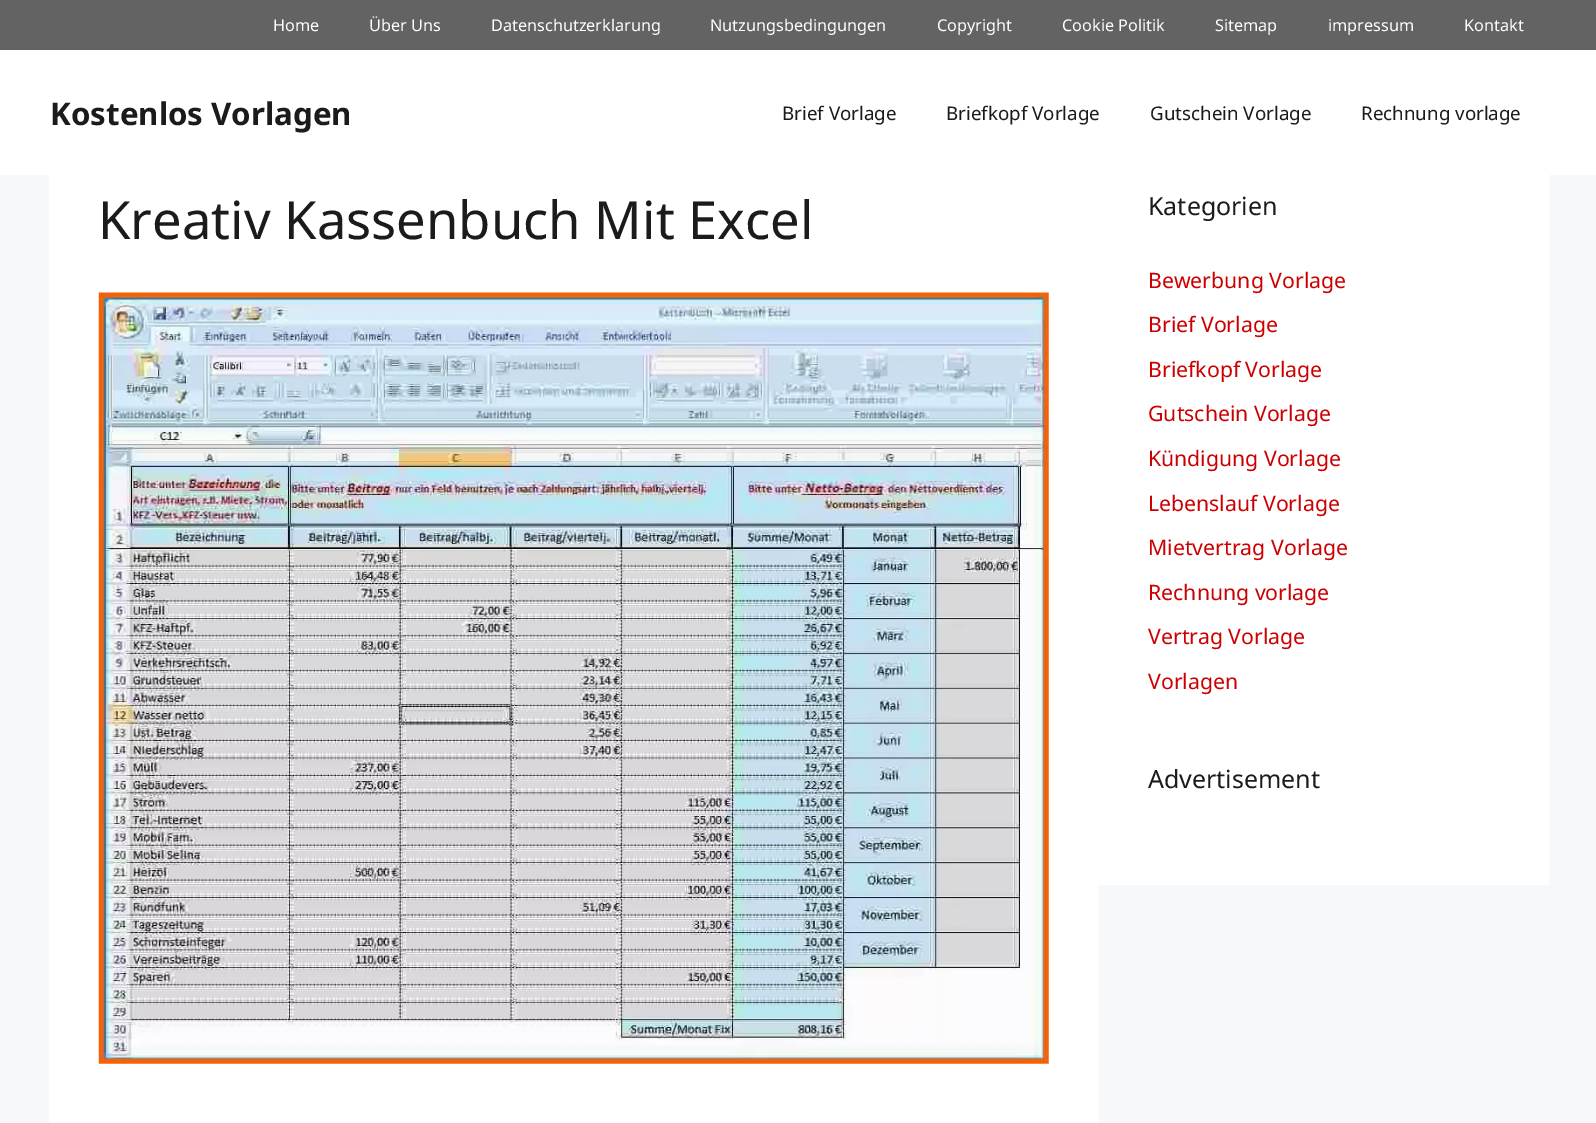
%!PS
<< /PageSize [1596 1123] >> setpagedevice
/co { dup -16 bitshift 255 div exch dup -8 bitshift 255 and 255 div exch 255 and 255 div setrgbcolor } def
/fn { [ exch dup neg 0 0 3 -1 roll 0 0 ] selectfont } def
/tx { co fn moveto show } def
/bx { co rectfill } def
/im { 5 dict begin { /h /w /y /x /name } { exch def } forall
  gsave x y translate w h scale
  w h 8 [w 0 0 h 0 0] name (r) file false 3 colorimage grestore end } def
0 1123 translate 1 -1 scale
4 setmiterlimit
0 0 1596 1123 16#F7F8F9 bx
0 0 1596 50 16#636363 bx
0 50 1596 125 16#FFFFFF bx
49 175 1050 948 16#FFFFFF bx
(media/1.raw) 98 292 951 772 im
1099 175 450 710 16#FFFFFF bx
(Home) 273 31 /NotoSans-Regular 16.25 16#FFFFFF tx
(Über Uns) 369 31 /NotoSans-Regular 16.25 16#FFFFFF tx
(Datenschutzerklarung) 491 31 /NotoSans-Regular 16.25 16#FFFFFF tx
(Nutzungsbedingungen) 710 31 /NotoSans-Regular 16.25 16#FFFFFF tx
(Copyright) 937 31 /NotoSans-Regular 16.25 16#FFFFFF tx
(Cookie Politik) 1062 31 /NotoSans-Regular 16.25 16#FFFFFF tx
(Sitemap) 1215 31 /NotoSans-Regular 16.25 16#FFFFFF tx
(impressum) 1328 31 /NotoSans-Regular 16.25 16#FFFFFF tx
(Kontakt) 1464 31 /NotoSans-Regular 16.25 16#FFFFFF tx
(Kostenlos Vorlagen) 50 125 /NotoSans-Bold 31.25 16#1B1B1B tx
(Brief Vorlage) 782 120 /NotoSans-Regular 18.75 16#1B1B1B tx
(Briefkopf Vorlage) 946 120 /NotoSans-Regular 18.75 16#1B1B1B tx
(Gutschein Vorlage) 1150 120 /NotoSans-Regular 18.75 16#1B1B1B tx
(Rechnung vorlage) 1361 120 /NotoSans-Regular 18.75 16#1B1B1B tx
(Kreativ Kassenbuch Mit Excel) 98 239 /NotoSans-Regular 52.5 16#1B1B1B tx
(Kategorien) 1148 215 /NotoSans-Regular 25 16#1B1B1B tx
(Bewerbung Vorlage) 1148 288 /NotoSans-Regular 21.25 16#CC0000 tx
(Brief Vorlage) 1148 332 /NotoSans-Regular 21.25 16#CC0000 tx
(Briefkopf Vorlage) 1148 377 /NotoSans-Regular 21.25 16#CC0000 tx
(Gutschein Vorlage) 1148 421 /NotoSans-Regular 21.25 16#CC0000 tx
(Kündigung Vorlage) 1148 466 /NotoSans-Regular 21.25 16#CC0000 tx
(Lebenslauf Vorlage) 1148 511 /NotoSans-Regular 21.25 16#CC0000 tx
(Mietvertrag Vorlage) 1148 555 /NotoSans-Regular 21.25 16#CC0000 tx
(Rechnung vorlage) 1148 600 /NotoSans-Regular 21.25 16#CC0000 tx
(Vertrag Vorlage) 1148 644 /NotoSans-Regular 21.25 16#CC0000 tx
(Vorlagen) 1148 689 /NotoSans-Regular 21.25 16#CC0000 tx
(Advertisement) 1148 788 /NotoSans-Regular 25 16#1B1B1B tx
showpage
